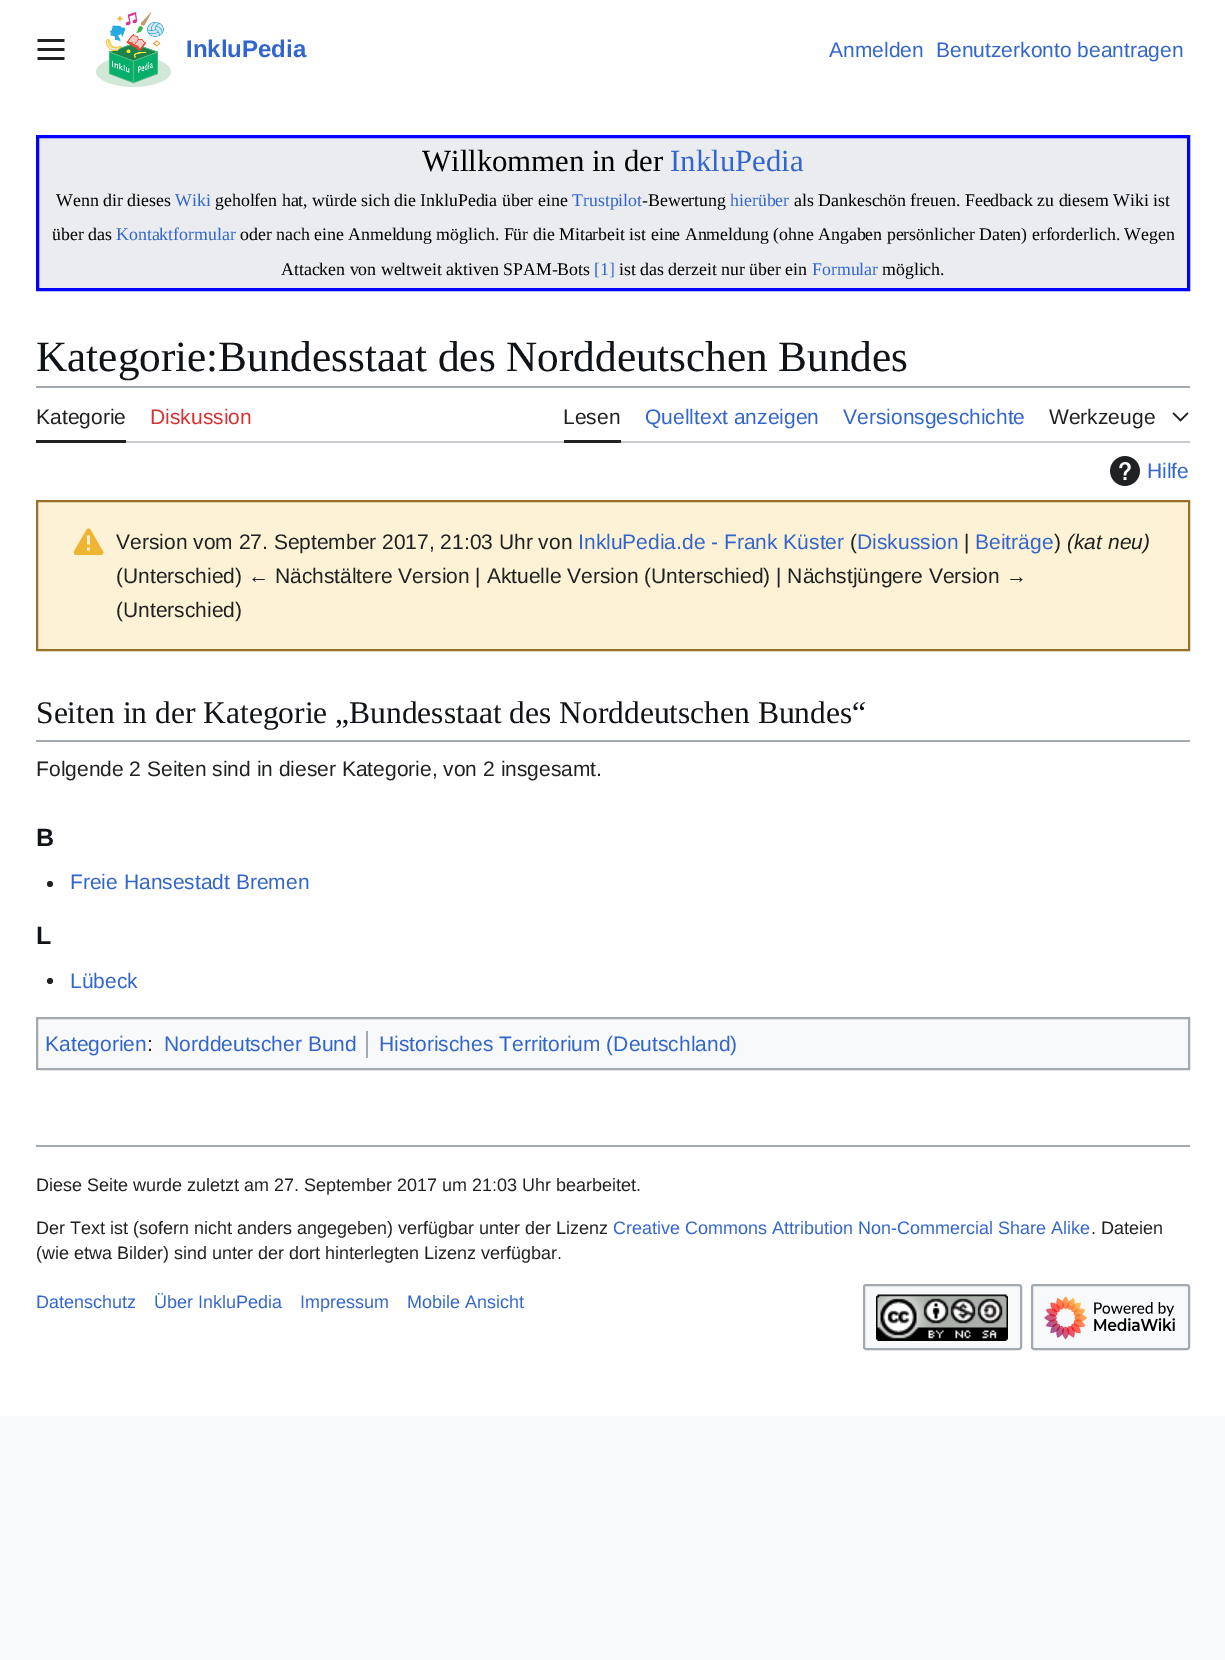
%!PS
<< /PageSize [1225 1660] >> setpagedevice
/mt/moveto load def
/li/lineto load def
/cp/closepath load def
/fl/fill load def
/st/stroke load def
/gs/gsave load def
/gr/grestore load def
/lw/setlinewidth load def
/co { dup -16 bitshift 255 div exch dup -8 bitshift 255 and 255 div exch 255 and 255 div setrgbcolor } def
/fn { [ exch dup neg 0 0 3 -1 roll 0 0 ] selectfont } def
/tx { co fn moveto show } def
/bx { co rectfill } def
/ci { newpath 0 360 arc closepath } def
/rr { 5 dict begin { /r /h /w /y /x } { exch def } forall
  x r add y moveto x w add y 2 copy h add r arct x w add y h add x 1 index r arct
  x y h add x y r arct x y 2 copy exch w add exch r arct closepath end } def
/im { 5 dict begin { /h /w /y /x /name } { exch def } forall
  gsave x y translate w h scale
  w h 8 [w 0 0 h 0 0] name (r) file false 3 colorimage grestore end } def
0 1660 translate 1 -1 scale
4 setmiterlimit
0 0 1225 1660 16#F8F9FA bx
0 0 1225 1416 16#FFFFFF bx
(media/1.raw) 37 39 28 21 im
(media/2.raw) 96 12 75 75 im
16#EAECF0 co
37.5 136.5 mt 1188.5 136.5 li 1188.5 289.5 li 37.5 289.5 li cp gs fl gr
16#0000FF co
3 lw
st
36 386 1154 2 16#A2A9B1 bx
16#C8CCD1 co
36 441 mt 36 443 li 1190 443 li 1190 389 li 1190 441 li cp fl
36 440 90 3 16#202122 bx
564 440 57 3 16#202122 bx
(media/3.raw) 1172 412 17 10 im
(media/4.raw) 1110 456 30 30 im
16#FDF2D5 co
37 501 mt 1189 501 li 1189 650 li 37 650 li cp gs fl gr
16#987027 co
2 lw
st
(media/5.raw) 74 528 30 27 im
36 740 1154 2 16#A2A9B1 bx
16#202122 co
50 884 3 ci fl
50 981 3 ci fl
16#F8F9FA co
37 1018 mt 1189 1018 li 1189 1069 li 37 1069 li cp gs fl gr
16#A2A9B1 co
st
366 1031 2 27 16#A2A9B1 bx
36 1145 1154 2 16#A2A9B1 bx
16#F8F9FA co
864 1285 157 64 2 rr gs fl gr
16#A2A9B1 co
st
(media/6.raw) 876 1294 132 47 im
16#F8F9FA co
1032 1285 157 64 2 rr gs fl gr
16#A2A9B1 co
st
(media/7.raw) 1044 1296 131 44 im
(InkluPedia) 186 57 /LiberationSans-Bold 24 16#3366CC tx
(Anmelden) 829 57 /LiberationSans-Regular 21 16#3366CC tx
(Benutzerkonto beantragen) 936 57 /LiberationSans-Regular 21 16#3366CC tx
(Willkommen in der) 422 171 /LiberationSerif-Regular 30.75 16#000000 tx
(InkluPedia) 670 171 /LiberationSerif-Regular 30.75 16#3366CC tx
(Wenn dir dieses) 56 206 /LiberationSerif-Regular 17.78 16#000000 tx
(Wiki) 175 206 /LiberationSerif-Regular 17.78 16#3366CC tx
(geholfen hat, würde sich die InkluPedia über eine) 215 206 /LiberationSerif-Regular 17.78 16#000000 tx
(Trustpilot) 572 206 /LiberationSerif-Regular 17.78 16#3366CC tx
(-Bewertung) 642 206 /LiberationSerif-Regular 17.78 16#000000 tx
(hierüber) 730 206 /LiberationSerif-Regular 17.78 16#3366CC tx
(als Dankeschön freuen. Feedback zu diesem Wiki ist) 794 206 /LiberationSerif-Regular 17.78 16#000000 tx
(über das) 52 240 /LiberationSerif-Regular 17.78 16#000000 tx
(Kontaktformular) 116 240 /LiberationSerif-Regular 17.78 16#3366CC tx
(oder nach eine Anmeldung möglich. Für die Mitarbeit ist eine Anmeldung \(ohne Angaben persönlicher Daten\) erforderlich. Wegen) 240 240 /LiberationSerif-Regular 17.78 16#000000 tx
(Attacken von weltweit aktiven SPAM-Bots) 281 275 /LiberationSerif-Regular 17.78 16#000000 tx
([1]) 594 275 /LiberationSerif-Regular 17.78 16#3366CC tx
(ist das derzeit nur über ein) 619 275 /LiberationSerif-Regular 17.78 16#000000 tx
(Formular) 812 275 /LiberationSerif-Regular 17.78 16#3366CC tx
(möglich.) 882 275 /LiberationSerif-Regular 17.78 16#000000 tx
(Kategorie:Bundesstaat des Norddeutschen Bundes) 36 371 /LiberationSerif-Regular 43.2 16#101418 tx
(Kategorie) 36 424 /LiberationSans-Regular 21 16#202122 tx
(Diskussion) 150 424 /LiberationSans-Regular 21 16#D73333 tx
(Lesen) 563 424 /LiberationSans-Regular 21 16#202122 tx
(Quelltext anzeigen) 645 424 /LiberationSans-Regular 21 16#3366CC tx
(Versionsgeschichte) 843 424 /LiberationSans-Regular 21 16#3366CC tx
(Werkzeuge) 1049 424 /LiberationSans-Regular 21 16#202122 tx
(Hilfe) 1147 478 /LiberationSans-Regular 21 16#3366CC tx
(Version vom 27. September 2017, 21:03 Uhr von) 116 549 /LiberationSans-Regular 21 16#202122 tx
(InkluPedia.de - Frank Küster) 578 549 /LiberationSans-Regular 21 16#3366CC tx
(\() 850 549 /LiberationSans-Regular 21 16#202122 tx
(Diskussion) 857 549 /LiberationSans-Regular 21 16#3366CC tx
(|) 964 549 /LiberationSans-Regular 21 16#202122 tx
(Beiträge) 975 549 /LiberationSans-Regular 21 16#3366CC tx
(\)) 1054 549 /LiberationSans-Regular 21 16#202122 tx
(\(kat neu\)) 1067 549 /LiberationSans-Italic 21 16#202122 tx
(\(Unterschied\) ← Nächstältere Version | Aktuelle Version \(Unterschied\) | Nächstjüngere Version →) 116 583 /LiberationSans-Regular 21 16#202122 tx
(\(Unterschied\)) 116 617 /LiberationSans-Regular 21 16#202122 tx
(Seiten in der Kategorie „Bundesstaat des Norddeutschen Bundes“) 36 723 /LiberationSerif-Regular 31.5 16#101418 tx
(Folgende 2 Seiten sind in dieser Kategorie, von 2 insgesamt.) 36 776 /LiberationSans-Regular 21 16#202122 tx
(B) 36 846 /LiberationSans-Bold 25 16#101418 tx
(Freie Hansestadt Bremen) 70 889 /LiberationSans-Regular 21 16#3366CC tx
(L) 36 944 /LiberationSans-Bold 25 16#101418 tx
(Lübeck) 70 988 /LiberationSans-Regular 21 16#3366CC tx
(Kategorien) 45 1051 /LiberationSans-Regular 21 16#3366CC tx
(:) 147 1051 /LiberationSans-Regular 21 16#202122 tx
(Norddeutscher Bund) 164 1051 /LiberationSans-Regular 21 16#3366CC tx
(Historisches Territorium \(Deutschland\)) 379 1051 /LiberationSans-Regular 21 16#3366CC tx
(Diese Seite wurde zuletzt am 27. September 2017 um 21:03 Uhr bearbeitet.) 36 1191 /LiberationSans-Regular 18 16#202122 tx
(Der Text ist \(sofern nicht anders angegeben\) verfügbar unter der Lizenz) 36 1234 /LiberationSans-Regular 18 16#202122 tx
(Creative Commons Attribution Non-Commercial Share Alike) 613 1234 /LiberationSans-Regular 18 16#3366CC tx
(. Dateien) 1091 1234 /LiberationSans-Regular 18 16#202122 tx
(\(wie etwa Bilder\) sind unter der dort hinterlegten Lizenz verfügbar.) 36 1259 /LiberationSans-Regular 18 16#202122 tx
(Datenschutz) 36 1308 /LiberationSans-Regular 18 16#3366CC tx
(Über InkluPedia) 154 1308 /LiberationSans-Regular 18 16#3366CC tx
(Impressum) 300 1308 /LiberationSans-Regular 18 16#3366CC tx
(Mobile Ansicht) 407 1308 /LiberationSans-Regular 18 16#3366CC tx
showpage
